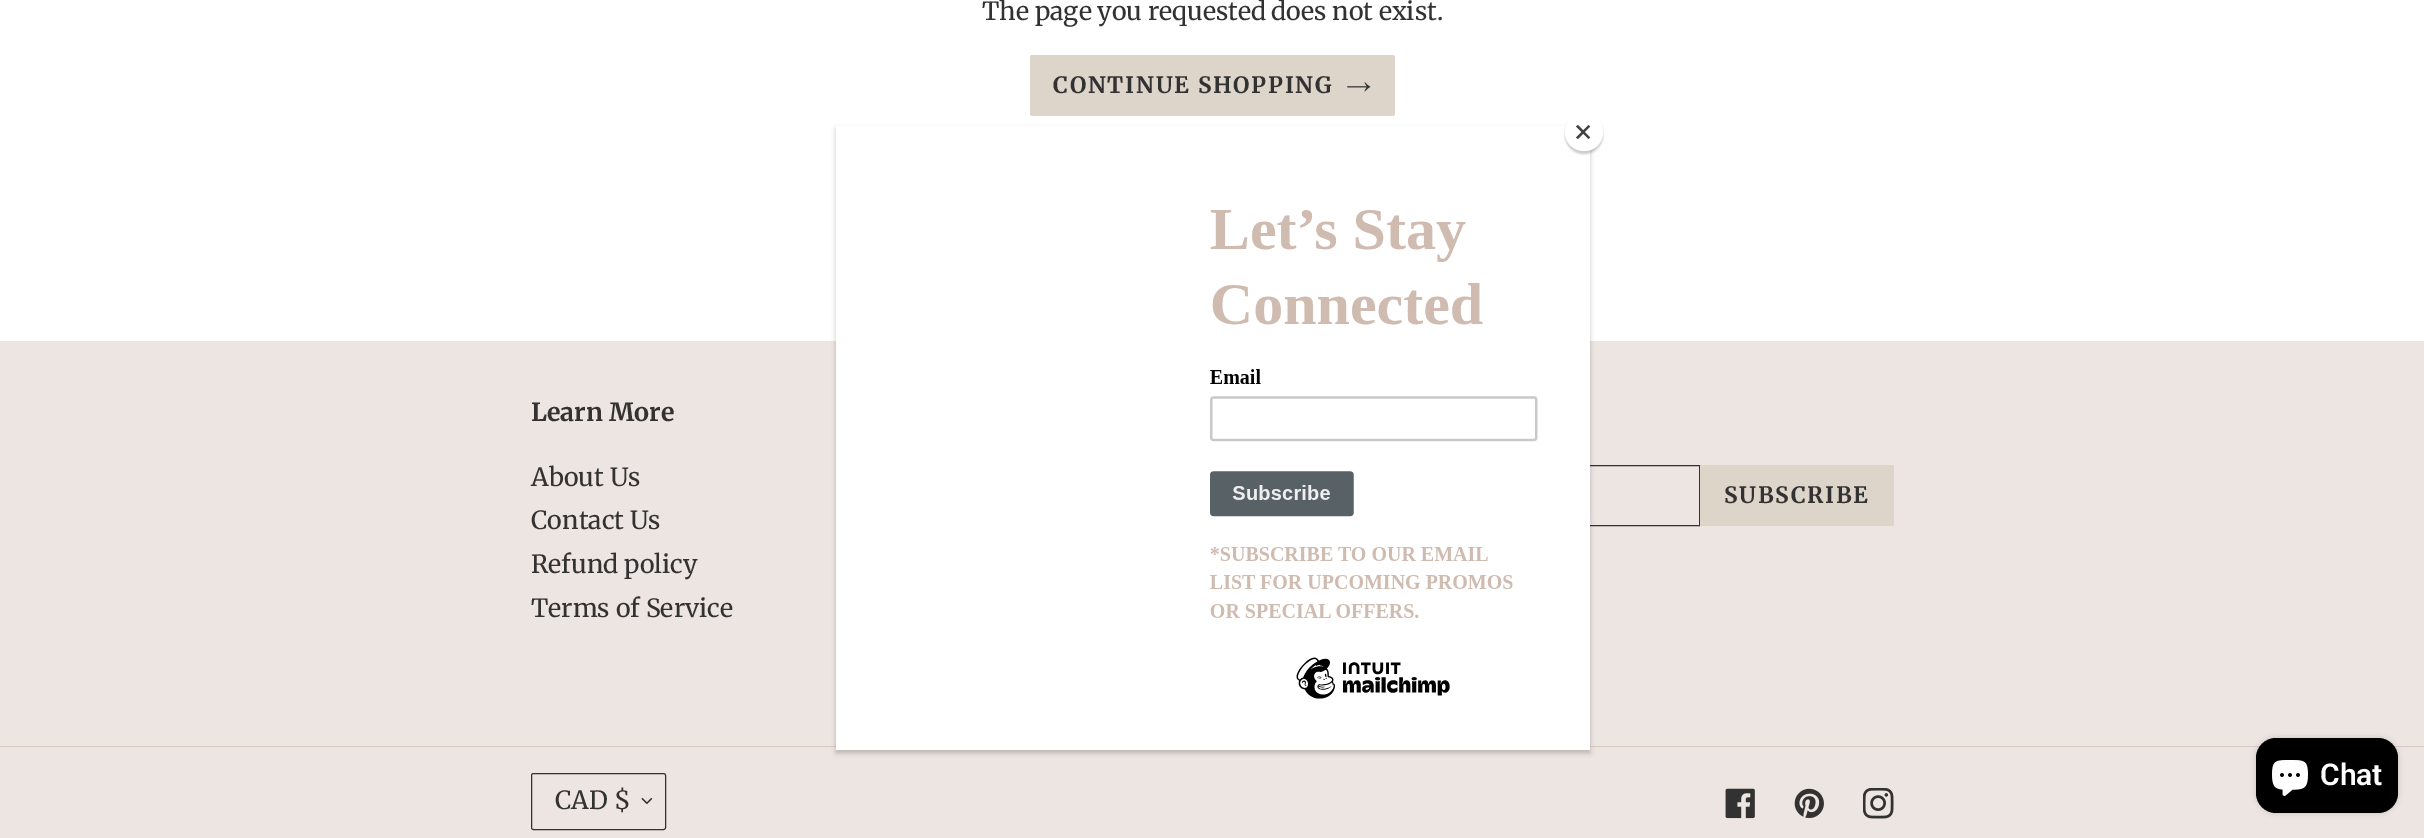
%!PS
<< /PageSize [2424 838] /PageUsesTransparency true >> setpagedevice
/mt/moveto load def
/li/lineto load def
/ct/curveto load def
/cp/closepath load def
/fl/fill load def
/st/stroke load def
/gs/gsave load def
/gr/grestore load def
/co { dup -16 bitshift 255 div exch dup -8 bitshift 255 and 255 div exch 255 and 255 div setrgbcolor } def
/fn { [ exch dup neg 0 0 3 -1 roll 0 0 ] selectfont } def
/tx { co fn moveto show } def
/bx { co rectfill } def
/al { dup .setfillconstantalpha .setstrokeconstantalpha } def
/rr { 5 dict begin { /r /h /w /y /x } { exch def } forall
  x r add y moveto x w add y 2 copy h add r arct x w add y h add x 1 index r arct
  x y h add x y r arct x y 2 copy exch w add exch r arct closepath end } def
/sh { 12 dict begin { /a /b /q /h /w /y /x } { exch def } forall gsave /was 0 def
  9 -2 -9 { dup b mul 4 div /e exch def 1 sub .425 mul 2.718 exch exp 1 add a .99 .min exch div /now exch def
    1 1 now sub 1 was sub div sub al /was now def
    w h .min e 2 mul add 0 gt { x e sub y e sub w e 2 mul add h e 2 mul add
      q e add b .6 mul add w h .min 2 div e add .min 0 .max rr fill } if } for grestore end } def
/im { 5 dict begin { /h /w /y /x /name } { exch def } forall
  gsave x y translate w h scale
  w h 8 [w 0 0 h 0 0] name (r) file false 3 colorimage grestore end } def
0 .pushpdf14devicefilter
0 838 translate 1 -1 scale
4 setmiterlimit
0 0 2424 838 16#FFFFFF bx
16#DDD5CA co
1030 55 365 61 2.5 rr fl
(media/1.raw) 1347 82 24 10 im
0 341 2424 497 16#ECE5E1 bx
16#333232 co
1231.5 465.5 468 60 rectstroke
16#DDD5CA co
1700 465 mt 1891.5 465 li 1893 465 1894 466 1894 467.5 ct 1894 523.5 li 1894 525 1893 526 1891.5 526 ct 1700 526 li cp fl
0 746 2424 1 16#D8CAC2 bx
(media/2.raw) 641 798 12 6 im
16#333232 co
531.5 773.5 134 56 2 rr st
(media/3.raw) 1725 788 30 31 im
(media/4.raw) 1794 788 30 30 im
(media/5.raw) 1863 788 31 31 im
gs
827 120 mt 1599 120 li 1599 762 li 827 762 li cp 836 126 mt 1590 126 li 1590 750 li 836 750 li cp eoclip newpath
16#000000 co
836 129 754 624 0 2.5 .2 sh
gr
(media/6.raw) 836 129 754 621 im
16#000000 co
1565 116 38 38 19 1 .2 sh
16#FFFFFF co
1565 114 38 37 18.5 rr fl
16#414141 co
1588.5 125 mt 1590 126.5 li 1578 139 li 1576 137.5 li cp fl
1576 126.5 mt 1578 125 li 1590 137.5 li 1588.5 139 li cp fl
16#000000 co
2256 738 142 75 20 3 .15 sh
2256 738 142 75 20 rr fl
(media/7.raw) 2272 760 36 36 im
/Merriweather-Regular 25 fn
16#333232 co
982 20 mt -.25 0 32 (The page you requested does not exist.) widthshow
/Merriweather-Bold 22.5 fn
1053 93 mt 1.75 0 (CONTINUE SHOPPING) ashow
(Learn More) 531 421 /Merriweather-Bold 25 16#333232 tx
(About Us) 531 486 /Merriweather-Regular 25 16#333232 tx
(Contact Us) 531 529 /Merriweather-Regular 25 16#333232 tx
(Refund policy) 531 573 /Merriweather-Regular 25 16#333232 tx
(Terms of Service) 531 617 /Merriweather-Regular 25 16#333232 tx
/Merriweather-Bold 22.5 fn
1724 503 mt 1.75 0 (SUBSCRIBE) ashow
(CAD $) 555 809 /Merriweather-Regular 25 16#333232 tx
(Chat) 2320 785 /Roboto-SemiBold 30 16#FFFFFF tx
.poppdf14devicefilter showpage
